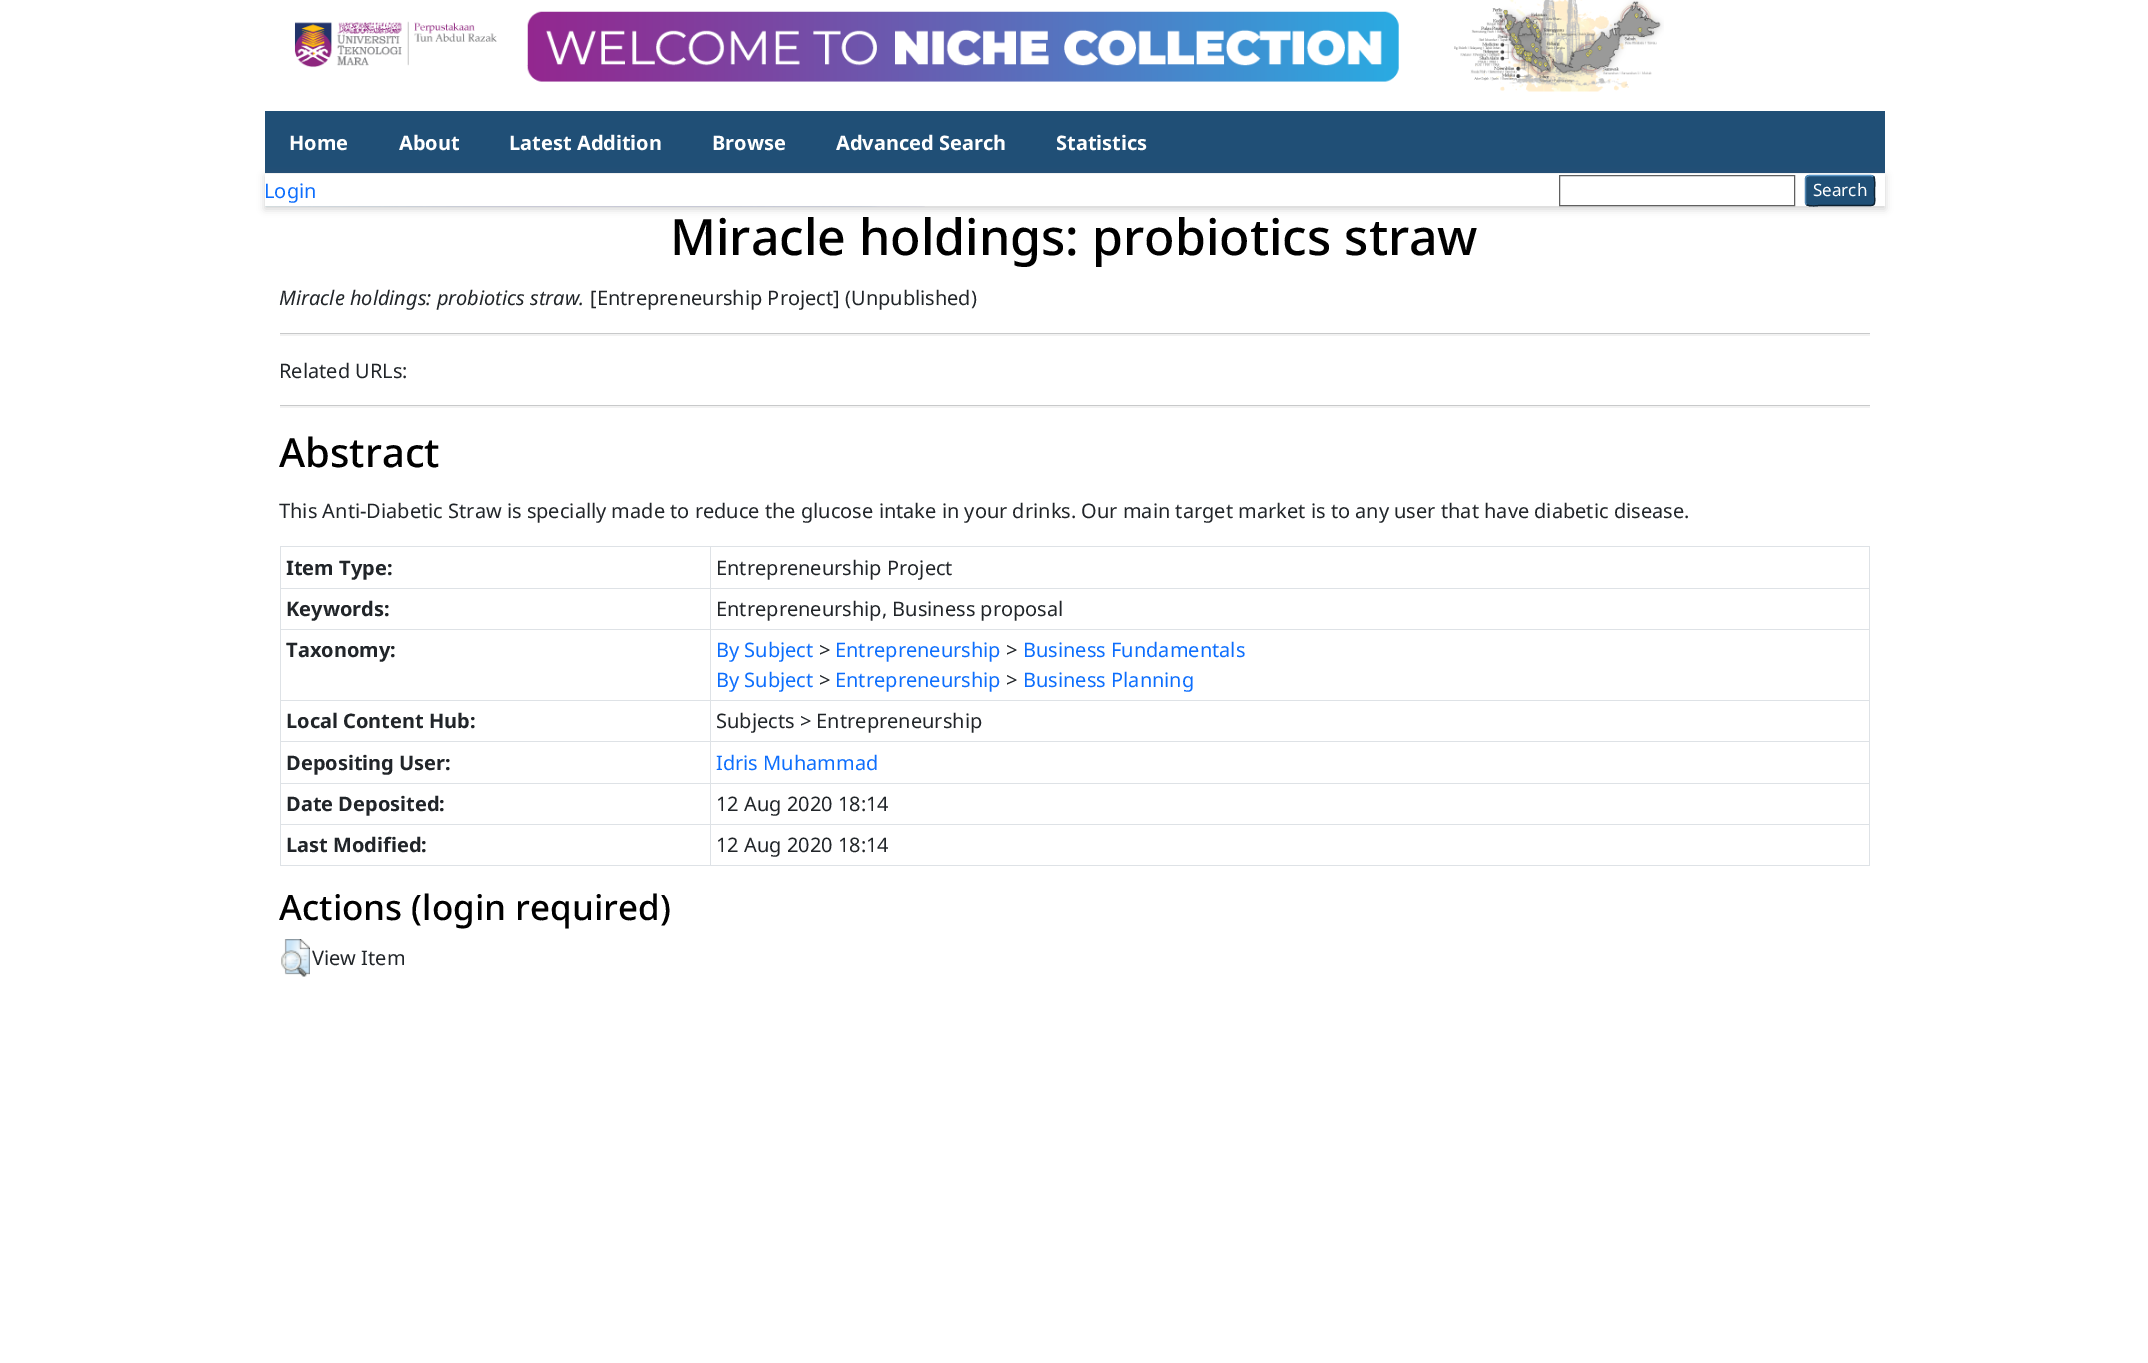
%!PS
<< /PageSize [2148 1363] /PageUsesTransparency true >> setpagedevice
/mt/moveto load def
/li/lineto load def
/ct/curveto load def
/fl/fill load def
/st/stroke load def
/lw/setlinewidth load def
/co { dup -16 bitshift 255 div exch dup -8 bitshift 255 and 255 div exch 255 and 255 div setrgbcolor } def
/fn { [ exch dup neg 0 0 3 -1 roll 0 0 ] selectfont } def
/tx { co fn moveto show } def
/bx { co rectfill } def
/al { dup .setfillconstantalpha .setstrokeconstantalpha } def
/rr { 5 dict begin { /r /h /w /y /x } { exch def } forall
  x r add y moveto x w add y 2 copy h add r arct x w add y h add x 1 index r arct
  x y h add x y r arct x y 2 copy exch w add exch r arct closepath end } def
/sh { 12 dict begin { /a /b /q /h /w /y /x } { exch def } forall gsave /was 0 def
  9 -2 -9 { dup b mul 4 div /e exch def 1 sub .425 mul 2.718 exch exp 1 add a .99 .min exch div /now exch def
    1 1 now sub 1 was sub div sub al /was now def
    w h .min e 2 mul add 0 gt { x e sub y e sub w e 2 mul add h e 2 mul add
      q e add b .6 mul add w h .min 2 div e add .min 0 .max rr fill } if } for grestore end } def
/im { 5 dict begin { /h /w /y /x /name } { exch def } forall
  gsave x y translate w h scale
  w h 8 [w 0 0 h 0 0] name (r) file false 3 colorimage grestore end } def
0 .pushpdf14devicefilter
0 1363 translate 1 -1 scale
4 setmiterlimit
0 0 2148 1363 16#FFFFFF bx
(media/1.raw) 294 0 1370 92 im
(media/2.raw) 265 206 660 1 im
265 111 1620 62 16#204F76 bx
16#646464 co
265 176 1620 33 0 4 .3 sh
265 174 1620 32 16#FFFFFF bx
16#606060 co
1559.5 175.5 235 30 rectstroke
16#1F4F76 co
1805 175 70 31 4 rr fl
16#5B97C7 co
1.2 lw
1806.5 176.5 mt 1809 175.5 li 1871 175.5 li 1873.5 176.5 li st
16#0D2131 co
1873.5 176.5 mt 1875.5 178.5 1874.5 188 1874.5 190.5 ct 1874.5 207.5 1877.5 205.5 1861 205.5 ct 1819 205.5 li 1819 205.5 1809 207 1806.5 204.5 ct st
16#5287B3 co
1806.5 204.5 mt 1806 204 1805.5 203.5 1805.5 202.5 ct 1805.5 179 li 1805.5 178 1806 177 1806.5 176.5 ct st
280 334 1590 2 16#F2F2F2 bx
280 333 1590 1 16#C8C9CA bx
280 406 1590 2 16#F2F2F2 bx
280 405 1590 1 16#C8C9CA bx
280 546 1590 1 16#DEE2E6 bx
280 588 1590 1 16#DEE2E6 bx
280 629 1590 1 16#DEE2E6 bx
280 700 1590 1 16#DEE2E6 bx
280 741 1590 1 16#DEE2E6 bx
280 783 1590 1 16#DEE2E6 bx
280 824 1590 1 16#DEE2E6 bx
280 865 1590 1 16#DEE2E6 bx
280 546 1 320 16#DEE2E6 bx
1869 546 1 320 16#DEE2E6 bx
710 546 1 320 16#DEE2E6 bx
(media/3.raw) 281 939 29 38 im
(Home) 289 150 /NotoSans-Bold 20 16#FFFFFF tx
(About) 399 150 /NotoSans-Bold 20 16#FFFFFF tx
(Latest Addition) 509 150 /NotoSans-Bold 20 16#FFFFFF tx
(Browse) 712 150 /NotoSans-Bold 20 16#FFFFFF tx
(Advanced Search) 836 150 /NotoSans-Bold 20 16#FFFFFF tx
(Statistics) 1056 150 /NotoSans-Bold 20 16#FFFFFF tx
(Login) 264 198 /NotoSans-Regular 20 16#0D6EFD tx
(Search) 1813 196 /NotoSans-Regular 17 16#FFFFFF tx
(Miracle holdings: probiotics straw) 670 255 /NotoSans-Medium 50 16#000000 tx
(Miracle holdings: probiotics straw.) 279 305 /NotoSans-Italic 20 16#212529 tx
([Entrepreneurship Project] \(Unpublished\)) 590 305 /NotoSans-Regular 20 16#212529 tx
(Related URLs:) 279 378 /NotoSans-Regular 20 16#212529 tx
(Abstract) 279 467 /NotoSans-Medium 40 16#000000 tx
(This Anti-Diabetic Straw is specially made to reduce the glucose intake in your drinks. Our main target market is to any user that have diabetic disease.) 279 518 /NotoSans-Regular 20 16#212529 tx
(Item Type:) 286 575 /NotoSans-Bold 20 16#212529 tx
(Entrepreneurship Project) 716 575 /NotoSans-Regular 20 16#212529 tx
(Keywords:) 286 616 /NotoSans-Bold 20 16#212529 tx
(Entrepreneurship, Business proposal) 716 616 /NotoSans-Regular 20 16#212529 tx
(Taxonomy:) 286 657 /NotoSans-Bold 20 16#212529 tx
(By Subject) 716 657 /NotoSans-Regular 20 16#0D6EFD tx
(>) 819 657 /NotoSans-Regular 20 16#212529 tx
(Entrepreneurship) 835 657 /NotoSans-Regular 20 16#0D6EFD tx
(>) 1006 657 /NotoSans-Regular 20 16#212529 tx
(Business Fundamentals) 1023 657 /NotoSans-Regular 20 16#0D6EFD tx
(By Subject) 716 687 /NotoSans-Regular 20 16#0D6EFD tx
(>) 819 687 /NotoSans-Regular 20 16#212529 tx
(Entrepreneurship) 835 687 /NotoSans-Regular 20 16#0D6EFD tx
(>) 1006 687 /NotoSans-Regular 20 16#212529 tx
(Business Planning) 1023 687 /NotoSans-Regular 20 16#0D6EFD tx
(Local Content Hub:) 286 728 /NotoSans-Bold 20 16#212529 tx
(Subjects > Entrepreneurship) 716 728 /NotoSans-Regular 20 16#212529 tx
(Depositing User:) 286 770 /NotoSans-Bold 20 16#212529 tx
(Idris Muhammad) 716 770 /NotoSans-Regular 20 16#0D6EFD tx
(Date Deposited:) 286 811 /NotoSans-Bold 20 16#212529 tx
(12 Aug 2020 18:14) 716 811 /NotoSans-Regular 20 16#212529 tx
(Last Modified:) 286 852 /NotoSans-Bold 20 16#212529 tx
(12 Aug 2020 18:14) 716 852 /NotoSans-Regular 20 16#212529 tx
(Actions \(login required\)) 279 920 /NotoSans-Medium 35 16#000000 tx
(View Item) 312 965 /NotoSans-Regular 20 16#212529 tx
.poppdf14devicefilter showpage
